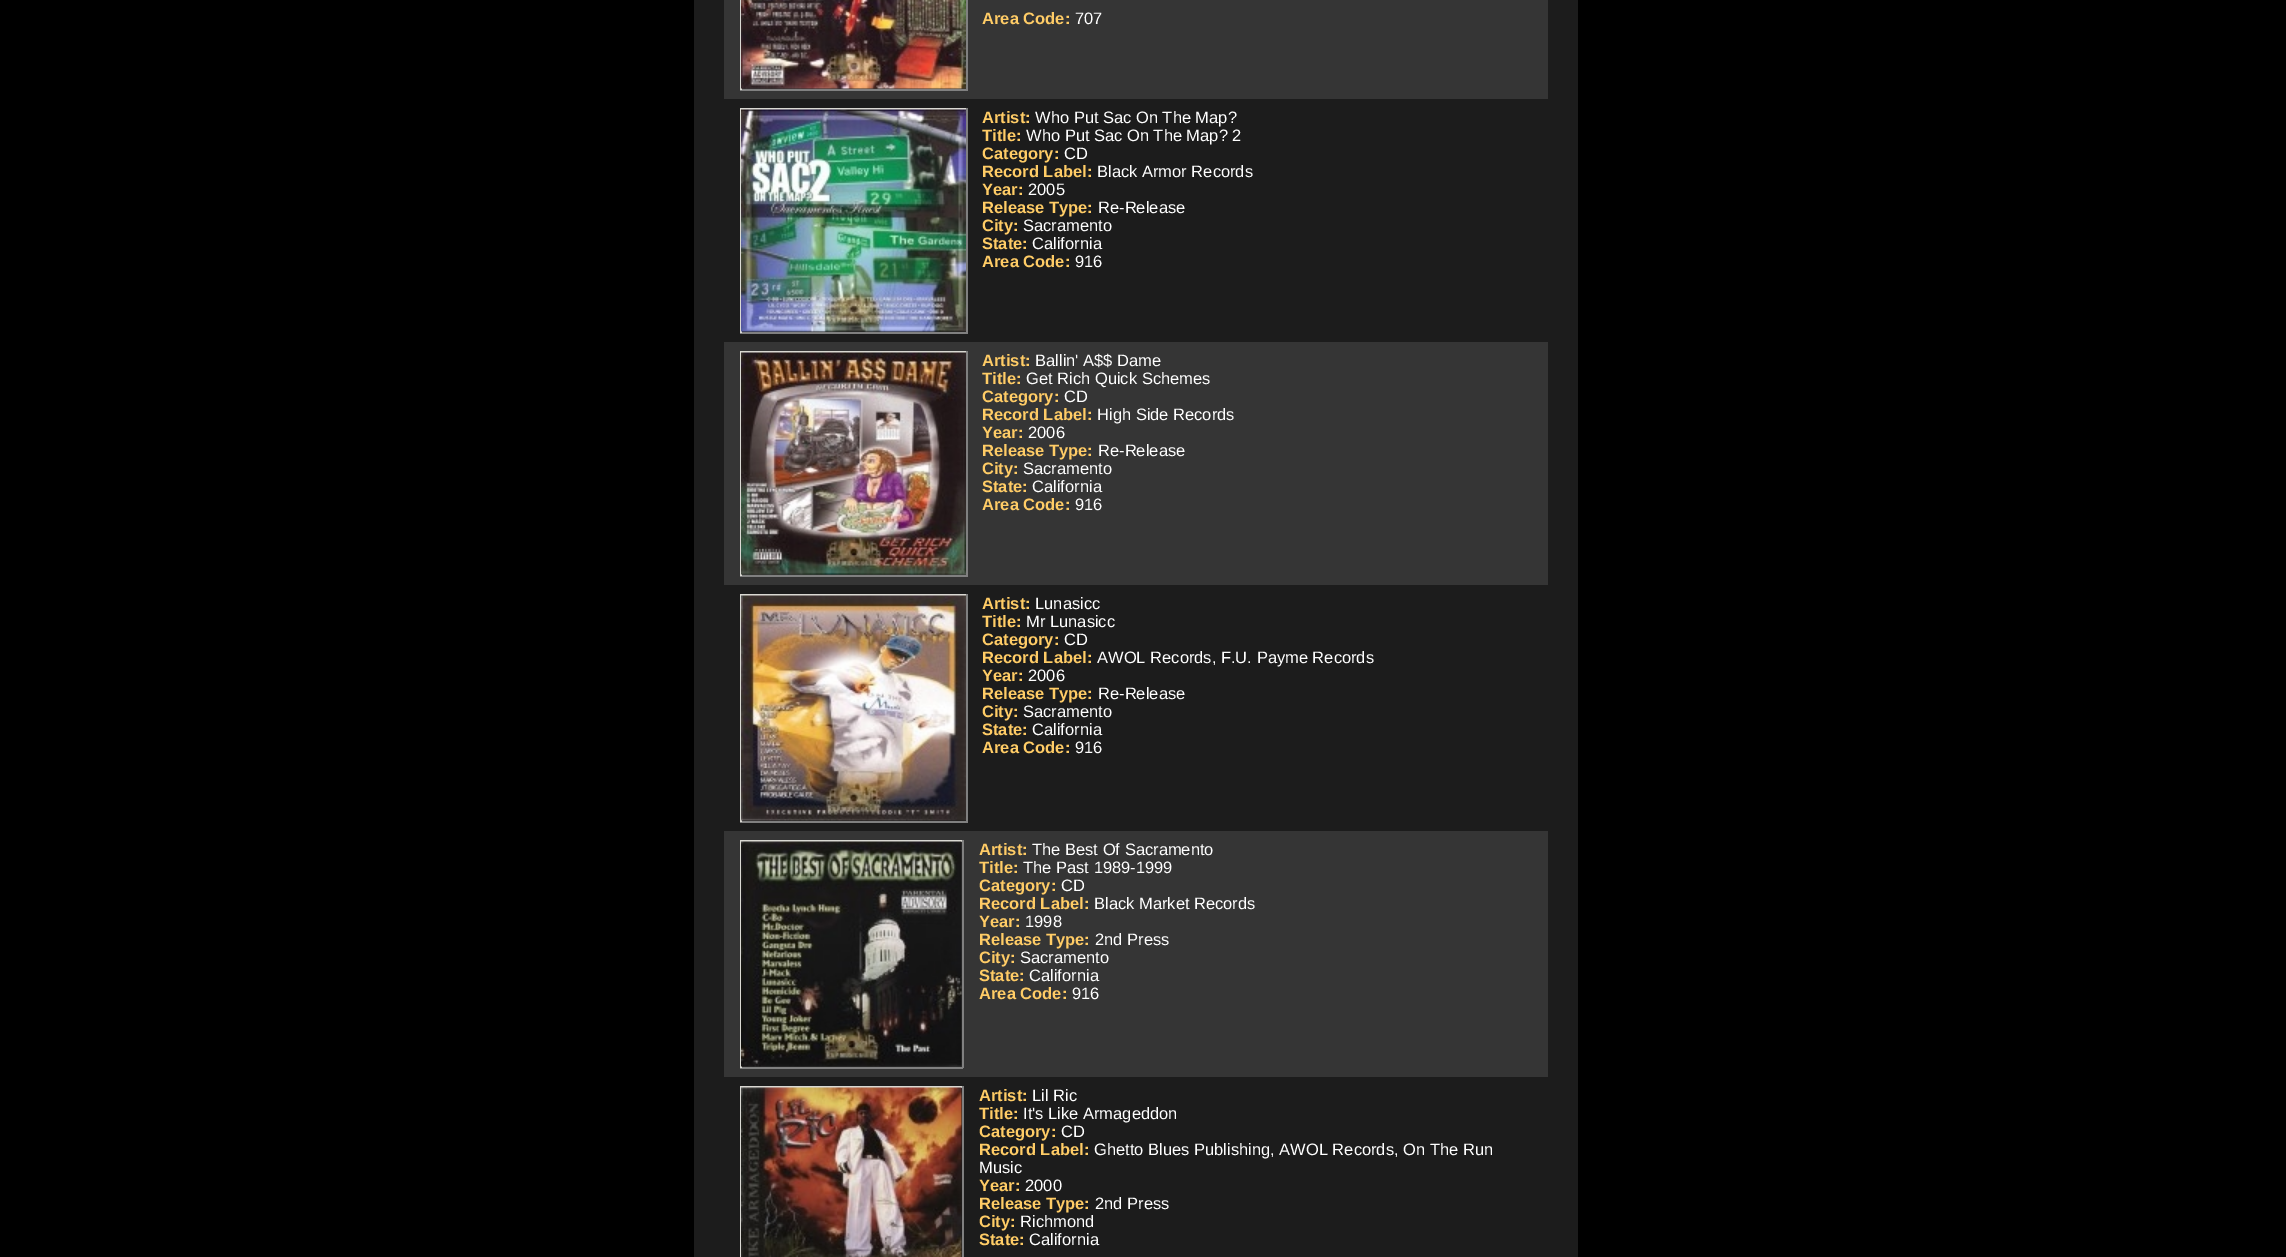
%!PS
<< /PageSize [2286 1257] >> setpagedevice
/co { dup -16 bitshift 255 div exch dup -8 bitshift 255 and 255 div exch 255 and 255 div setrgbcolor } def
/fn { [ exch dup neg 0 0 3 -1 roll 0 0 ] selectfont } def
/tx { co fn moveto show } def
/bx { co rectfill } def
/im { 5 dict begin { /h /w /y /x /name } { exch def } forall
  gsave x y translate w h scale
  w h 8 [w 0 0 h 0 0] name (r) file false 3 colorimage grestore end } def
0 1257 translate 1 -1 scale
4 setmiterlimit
0 0 2286 1257 16#000000 bx
694 0 884 1257 16#1C1C1C bx
724 0 824 99 16#353535 bx
966 0 2 90 16#808080 bx
740 89 228 2 16#808080 bx
740 0 2 90 16#DAD9D3 bx
(media/1.raw) 741 0 225 89 im
740 108 228 2 16#DAD9D3 bx
966 108 2 225 16#808080 bx
740 332 228 2 16#808080 bx
740 108 2 225 16#DAD9D3 bx
(media/2.raw) 741 109 225 223 im
724 342 824 243 16#353535 bx
740 351 228 2 16#DAD9D3 bx
966 351 2 225 16#808080 bx
740 575 228 2 16#808080 bx
740 351 2 225 16#DAD9D3 bx
(media/3.raw) 741 352 225 223 im
740 594 228 2 16#DAD9D3 bx
966 594 2 228 16#808080 bx
740 821 228 2 16#808080 bx
740 594 2 228 16#DAD9D3 bx
(media/4.raw) 741 595 225 226 im
724 831 824 246 16#353535 bx
740 840 223 2 16#DAD9D3 bx
962 840 2 228 16#808080 bx
740 1067 223 2 16#808080 bx
740 840 2 228 16#DAD9D3 bx
(media/5.raw) 741 841 221 226 im
740 1086 223 2 16#DAD9D3 bx
740 1086 2 171 16#DAD9D3 bx
962 1086 2 171 16#808080 bx
(media/6.raw) 741 1087 221 170 im
(Area Code:) 982 24 /LiberationSans-Bold 16.5 16#FFCC66 tx
(707) 1075 24 /LiberationSans-Regular 16.5 16#FFFFFF tx
(Artist:) 982 123 /LiberationSans-Bold 16.5 16#FFCC66 tx
(Who Put Sac On The Map?) 1035 123 /LiberationSans-Regular 16.5 16#FFFFFF tx
(Title:) 982 141 /LiberationSans-Bold 16.5 16#FFCC66 tx
(Who Put Sac On The Map? 2) 1026 141 /LiberationSans-Regular 16.5 16#FFFFFF tx
(Category:) 982 159 /LiberationSans-Bold 16.5 16#FFCC66 tx
(CD) 1064 159 /LiberationSans-Regular 16.5 16#FFFFFF tx
(Record Label:) 982 177 /LiberationSans-Bold 16.5 16#FFCC66 tx
(Black Armor Records) 1097 177 /LiberationSans-Regular 16.5 16#FFFFFF tx
(Year:) 982 195 /LiberationSans-Bold 16.5 16#FFCC66 tx
(2005) 1028 195 /LiberationSans-Regular 16.5 16#FFFFFF tx
(Release Type:) 982 213 /LiberationSans-Bold 16.5 16#FFCC66 tx
(Re-Release) 1098 213 /LiberationSans-Regular 16.5 16#FFFFFF tx
(City:) 982 231 /LiberationSans-Bold 16.5 16#FFCC66 tx
(Sacramento) 1023 231 /LiberationSans-Regular 16.5 16#FFFFFF tx
(State:) 982 249 /LiberationSans-Bold 16.5 16#FFCC66 tx
(California) 1032 249 /LiberationSans-Regular 16.5 16#FFFFFF tx
(Area Code:) 982 267 /LiberationSans-Bold 16.5 16#FFCC66 tx
(916) 1075 267 /LiberationSans-Regular 16.5 16#FFFFFF tx
(Artist:) 982 366 /LiberationSans-Bold 16.5 16#FFCC66 tx
(Ballin' A$$ Dame) 1035 366 /LiberationSans-Regular 16.5 16#FFFFFF tx
(Title:) 982 384 /LiberationSans-Bold 16.5 16#FFCC66 tx
(Get Rich Quick Schemes) 1026 384 /LiberationSans-Regular 16.5 16#FFFFFF tx
(Category:) 982 402 /LiberationSans-Bold 16.5 16#FFCC66 tx
(CD) 1064 402 /LiberationSans-Regular 16.5 16#FFFFFF tx
(Record Label:) 982 420 /LiberationSans-Bold 16.5 16#FFCC66 tx
(High Side Records) 1097 420 /LiberationSans-Regular 16.5 16#FFFFFF tx
(Year:) 982 438 /LiberationSans-Bold 16.5 16#FFCC66 tx
(2006) 1028 438 /LiberationSans-Regular 16.5 16#FFFFFF tx
(Release Type:) 982 456 /LiberationSans-Bold 16.5 16#FFCC66 tx
(Re-Release) 1098 456 /LiberationSans-Regular 16.5 16#FFFFFF tx
(City:) 982 474 /LiberationSans-Bold 16.5 16#FFCC66 tx
(Sacramento) 1023 474 /LiberationSans-Regular 16.5 16#FFFFFF tx
(State:) 982 492 /LiberationSans-Bold 16.5 16#FFCC66 tx
(California) 1032 492 /LiberationSans-Regular 16.5 16#FFFFFF tx
(Area Code:) 982 510 /LiberationSans-Bold 16.5 16#FFCC66 tx
(916) 1075 510 /LiberationSans-Regular 16.5 16#FFFFFF tx
(Artist:) 982 609 /LiberationSans-Bold 16.5 16#FFCC66 tx
(Lunasicc) 1035 609 /LiberationSans-Regular 16.5 16#FFFFFF tx
(Title:) 982 627 /LiberationSans-Bold 16.5 16#FFCC66 tx
(Mr Lunasicc) 1026 627 /LiberationSans-Regular 16.5 16#FFFFFF tx
(Category:) 982 645 /LiberationSans-Bold 16.5 16#FFCC66 tx
(CD) 1064 645 /LiberationSans-Regular 16.5 16#FFFFFF tx
(Record Label:) 982 663 /LiberationSans-Bold 16.5 16#FFCC66 tx
(AWOL Records, F.U. Payme Records) 1097 663 /LiberationSans-Regular 16.5 16#FFFFFF tx
(Year:) 982 681 /LiberationSans-Bold 16.5 16#FFCC66 tx
(2006) 1028 681 /LiberationSans-Regular 16.5 16#FFFFFF tx
(Release Type:) 982 699 /LiberationSans-Bold 16.5 16#FFCC66 tx
(Re-Release) 1098 699 /LiberationSans-Regular 16.5 16#FFFFFF tx
(City:) 982 717 /LiberationSans-Bold 16.5 16#FFCC66 tx
(Sacramento) 1023 717 /LiberationSans-Regular 16.5 16#FFFFFF tx
(State:) 982 735 /LiberationSans-Bold 16.5 16#FFCC66 tx
(California) 1032 735 /LiberationSans-Regular 16.5 16#FFFFFF tx
(Area Code:) 982 753 /LiberationSans-Bold 16.5 16#FFCC66 tx
(916) 1075 753 /LiberationSans-Regular 16.5 16#FFFFFF tx
(Artist:) 979 855 /LiberationSans-Bold 16.5 16#FFCC66 tx
(The Best Of Sacramento) 1032 855 /LiberationSans-Regular 16.5 16#FFFFFF tx
(Title:) 979 873 /LiberationSans-Bold 16.5 16#FFCC66 tx
(The Past 1989-1999) 1023 873 /LiberationSans-Regular 16.5 16#FFFFFF tx
(Category:) 979 891 /LiberationSans-Bold 16.5 16#FFCC66 tx
(CD) 1061 891 /LiberationSans-Regular 16.5 16#FFFFFF tx
(Record Label:) 979 909 /LiberationSans-Bold 16.5 16#FFCC66 tx
(Black Market Records) 1094 909 /LiberationSans-Regular 16.5 16#FFFFFF tx
(Year:) 979 927 /LiberationSans-Bold 16.5 16#FFCC66 tx
(1998) 1025 927 /LiberationSans-Regular 16.5 16#FFFFFF tx
(Release Type:) 979 945 /LiberationSans-Bold 16.5 16#FFCC66 tx
(2nd Press) 1095 945 /LiberationSans-Regular 16.5 16#FFFFFF tx
(City:) 979 963 /LiberationSans-Bold 16.5 16#FFCC66 tx
(Sacramento) 1020 963 /LiberationSans-Regular 16.5 16#FFFFFF tx
(State:) 979 981 /LiberationSans-Bold 16.5 16#FFCC66 tx
(California) 1029 981 /LiberationSans-Regular 16.5 16#FFFFFF tx
(Area Code:) 979 999 /LiberationSans-Bold 16.5 16#FFCC66 tx
(916) 1072 999 /LiberationSans-Regular 16.5 16#FFFFFF tx
(Artist:) 979 1101 /LiberationSans-Bold 16.5 16#FFCC66 tx
(Lil Ric) 1032 1101 /LiberationSans-Regular 16.5 16#FFFFFF tx
(Title:) 979 1119 /LiberationSans-Bold 16.5 16#FFCC66 tx
(It's Like Armageddon) 1023 1119 /LiberationSans-Regular 16.5 16#FFFFFF tx
(Category:) 979 1137 /LiberationSans-Bold 16.5 16#FFCC66 tx
(CD) 1061 1137 /LiberationSans-Regular 16.5 16#FFFFFF tx
(Record Label:) 979 1155 /LiberationSans-Bold 16.5 16#FFCC66 tx
(Ghetto Blues Publishing, AWOL Records, On The Run) 1094 1155 /LiberationSans-Regular 16.5 16#FFFFFF tx
(Music) 979 1173 /LiberationSans-Regular 16.5 16#FFFFFF tx
(Year:) 979 1191 /LiberationSans-Bold 16.5 16#FFCC66 tx
(2000) 1025 1191 /LiberationSans-Regular 16.5 16#FFFFFF tx
(Release Type:) 979 1209 /LiberationSans-Bold 16.5 16#FFCC66 tx
(2nd Press) 1095 1209 /LiberationSans-Regular 16.5 16#FFFFFF tx
(City:) 979 1227 /LiberationSans-Bold 16.5 16#FFCC66 tx
(Richmond) 1020 1227 /LiberationSans-Regular 16.5 16#FFFFFF tx
(State:) 979 1245 /LiberationSans-Bold 16.5 16#FFCC66 tx
(California) 1029 1245 /LiberationSans-Regular 16.5 16#FFFFFF tx
showpage
